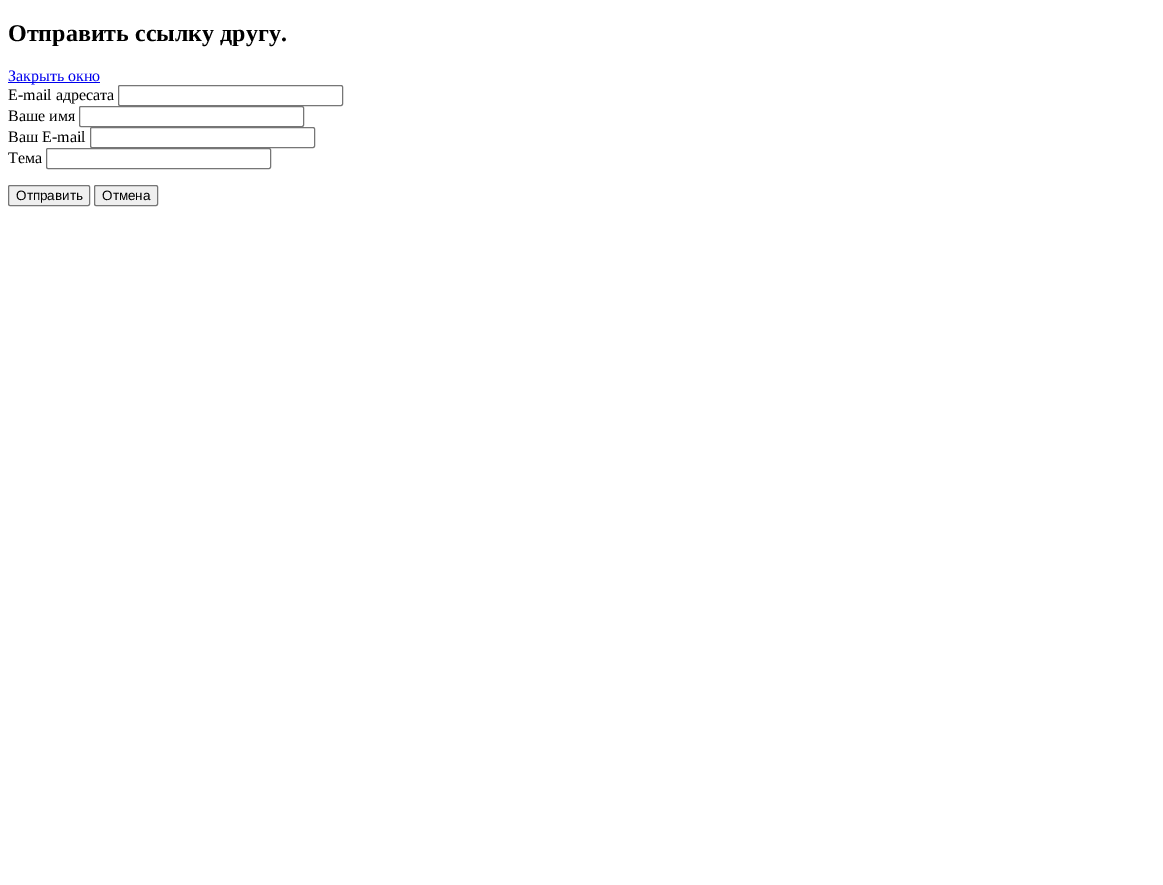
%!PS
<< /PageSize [1163 885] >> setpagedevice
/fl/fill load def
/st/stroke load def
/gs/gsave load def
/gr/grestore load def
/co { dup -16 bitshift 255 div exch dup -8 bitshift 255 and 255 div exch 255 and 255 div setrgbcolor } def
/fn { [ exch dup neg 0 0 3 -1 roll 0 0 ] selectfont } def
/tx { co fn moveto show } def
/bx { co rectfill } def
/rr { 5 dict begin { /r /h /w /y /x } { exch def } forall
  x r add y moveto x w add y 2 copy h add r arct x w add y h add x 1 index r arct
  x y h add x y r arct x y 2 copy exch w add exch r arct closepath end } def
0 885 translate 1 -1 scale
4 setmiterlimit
0 0 1163 885 16#FFFFFF bx
8 82 92 1 16#0000EE bx
16#767676 co
118.5 85.5 224 20 1.5 rr st
79.5 106.5 224 20 1.5 rr st
90.5 127.5 224 20 1.5 rr st
46.5 148.5 224 20 1.5 rr st
16#EFEFEF co
8.5 185.5 81 20 1.5 rr gs fl gr
16#767676 co
st
16#EFEFEF co
94.5 185.5 63 20 1.5 rr gs fl gr
16#767676 co
st
(Отправить ссылку другу.) 8 41 /LiberationSerif-Bold 24 16#000000 tx
(Закрыть окно) 8 81 /LiberationSerif-Regular 16 16#0000EE tx
(E-mail адресата) 8 100 /LiberationSerif-Regular 16 16#000000 tx
(Ваше имя) 8 121 /LiberationSerif-Regular 16 16#000000 tx
(Ваш E-mail) 8 142 /LiberationSerif-Regular 16 16#000000 tx
(Тема) 8 163 /LiberationSerif-Regular 16 16#000000 tx
(Отправить) 16 200 /LiberationSans-Regular 13.5 16#000000 tx
(Отмена) 102 200 /LiberationSans-Regular 13.5 16#000000 tx
showpage
